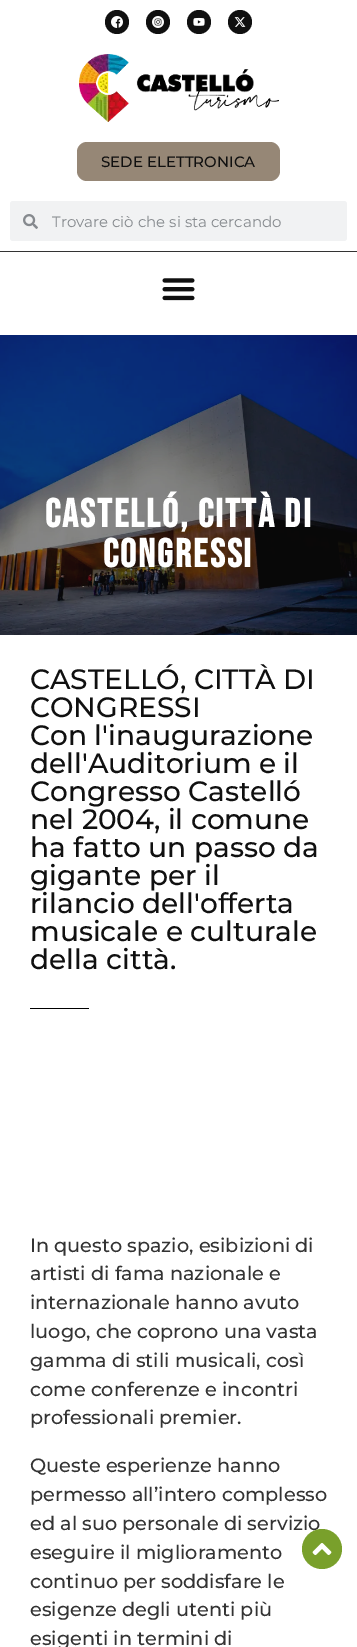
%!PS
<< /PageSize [357 1647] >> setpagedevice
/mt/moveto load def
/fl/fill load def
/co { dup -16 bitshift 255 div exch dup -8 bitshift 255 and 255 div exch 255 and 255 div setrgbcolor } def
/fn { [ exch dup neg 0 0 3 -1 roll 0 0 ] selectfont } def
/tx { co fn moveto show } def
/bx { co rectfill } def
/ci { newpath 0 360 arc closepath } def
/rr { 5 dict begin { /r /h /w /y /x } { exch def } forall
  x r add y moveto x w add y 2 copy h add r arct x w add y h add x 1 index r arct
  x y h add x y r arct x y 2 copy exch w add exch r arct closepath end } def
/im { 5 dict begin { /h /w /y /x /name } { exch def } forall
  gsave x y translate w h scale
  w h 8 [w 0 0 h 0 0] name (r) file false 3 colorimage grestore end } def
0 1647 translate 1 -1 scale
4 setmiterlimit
0 0 357 1647 16#FFFFFF bx
16#101010 co
117 22 12 ci fl
(media/1.raw) 111 16 12 12 im
158 22 12 ci fl
(media/2.raw) 152 16 12 12 im
199 22 12 ci fl
(media/3.raw) 193 17 12 9 im
240 22 12 ci fl
(media/4.raw) 234 17 12 10 im
(media/5.raw) 79 54 200 68 im
16#968776 co
77 142 203 39 10 rr fl
16#F1F2F3 co
10 201 337 40 3 rr fl
(media/6.raw) 23 214 15 15 im
0 251 357 1 16#333333 bx
(media/7.raw) 162 278 33 23 im
(media/9.raw) 0 335 357 300 im
30 1008 59 1 16#000000 bx
(SEDE ELETTRONICA) 101 167 /Montserrat-Medium 15 16#101010 tx
(Trovare ciò che si sta cercando) 52 227 /Montserrat-Regular 15 16#868A8E tx
/BebasNeue-Bold 40 fn
16#FFFFFF co
45 527 mt 2 0 (CASTELLÓ, CITTÀ DI) ashow
103 567 mt 2 0 (CONGRESSI) ashow
(CASTELLÓ, CITTÀ DI) 30 689 /Montserrat-Medium 28 16#101010 tx
(CONGRESSI) 30 717 /Montserrat-Medium 28 16#101010 tx
(Con l'inaugurazione) 30 745 /Montserrat-Medium 28 16#101010 tx
(dell'Auditorium e il) 30 773 /Montserrat-Medium 28 16#101010 tx
(Congresso Castelló) 30 801 /Montserrat-Medium 28 16#101010 tx
(nel 2004, il comune) 30 829 /Montserrat-Medium 28 16#101010 tx
(ha fatto un passo da) 30 857 /Montserrat-Medium 28 16#101010 tx
(gigante per il) 30 885 /Montserrat-Medium 28 16#101010 tx
(rilancio dell'offerta) 30 913 /Montserrat-Medium 28 16#101010 tx
(musicale e culturale) 30 941 /Montserrat-Medium 28 16#101010 tx
(della città.) 30 969 /Montserrat-Medium 28 16#101010 tx
(In questo spazio, esibizioni di) 30 1252 /Montserrat-Medium 19.25 16#333333 tx
(artisti di fama nazionale e) 30 1280 /Montserrat-Medium 19.25 16#333333 tx
(internazionale hanno avuto) 30 1309 /Montserrat-Medium 19.25 16#333333 tx
(luogo, che coprono una vasta) 30 1338 /Montserrat-Medium 19.25 16#333333 tx
(gamma di stili musicali, così) 30 1367 /Montserrat-Medium 19.25 16#333333 tx
(come conferenze e incontri) 30 1396 /Montserrat-Medium 19.25 16#333333 tx
(professionali premier.) 30 1424 /Montserrat-Medium 19.25 16#333333 tx
(Queste esperienze hanno) 30 1472 /Montserrat-Medium 19.25 16#333333 tx
(permesso all’intero complesso) 30 1501 /Montserrat-Medium 19.25 16#333333 tx
(ed al suo personale di servizio) 30 1530 /Montserrat-Medium 19.25 16#333333 tx
16#79A02B co
322 1549 20 ci fl
(media/8.raw) 312 1543 20 12 im
(eseguire il miglioramento) 30 1559 /Montserrat-Medium 19.25 16#333333 tx
(continuo per soddisfare le) 30 1588 /Montserrat-Medium 19.25 16#333333 tx
(esigenze degli utenti più) 30 1616 /Montserrat-Medium 19.25 16#333333 tx
(esigenti in termini di) 30 1645 /Montserrat-Medium 19.25 16#333333 tx
showpage
